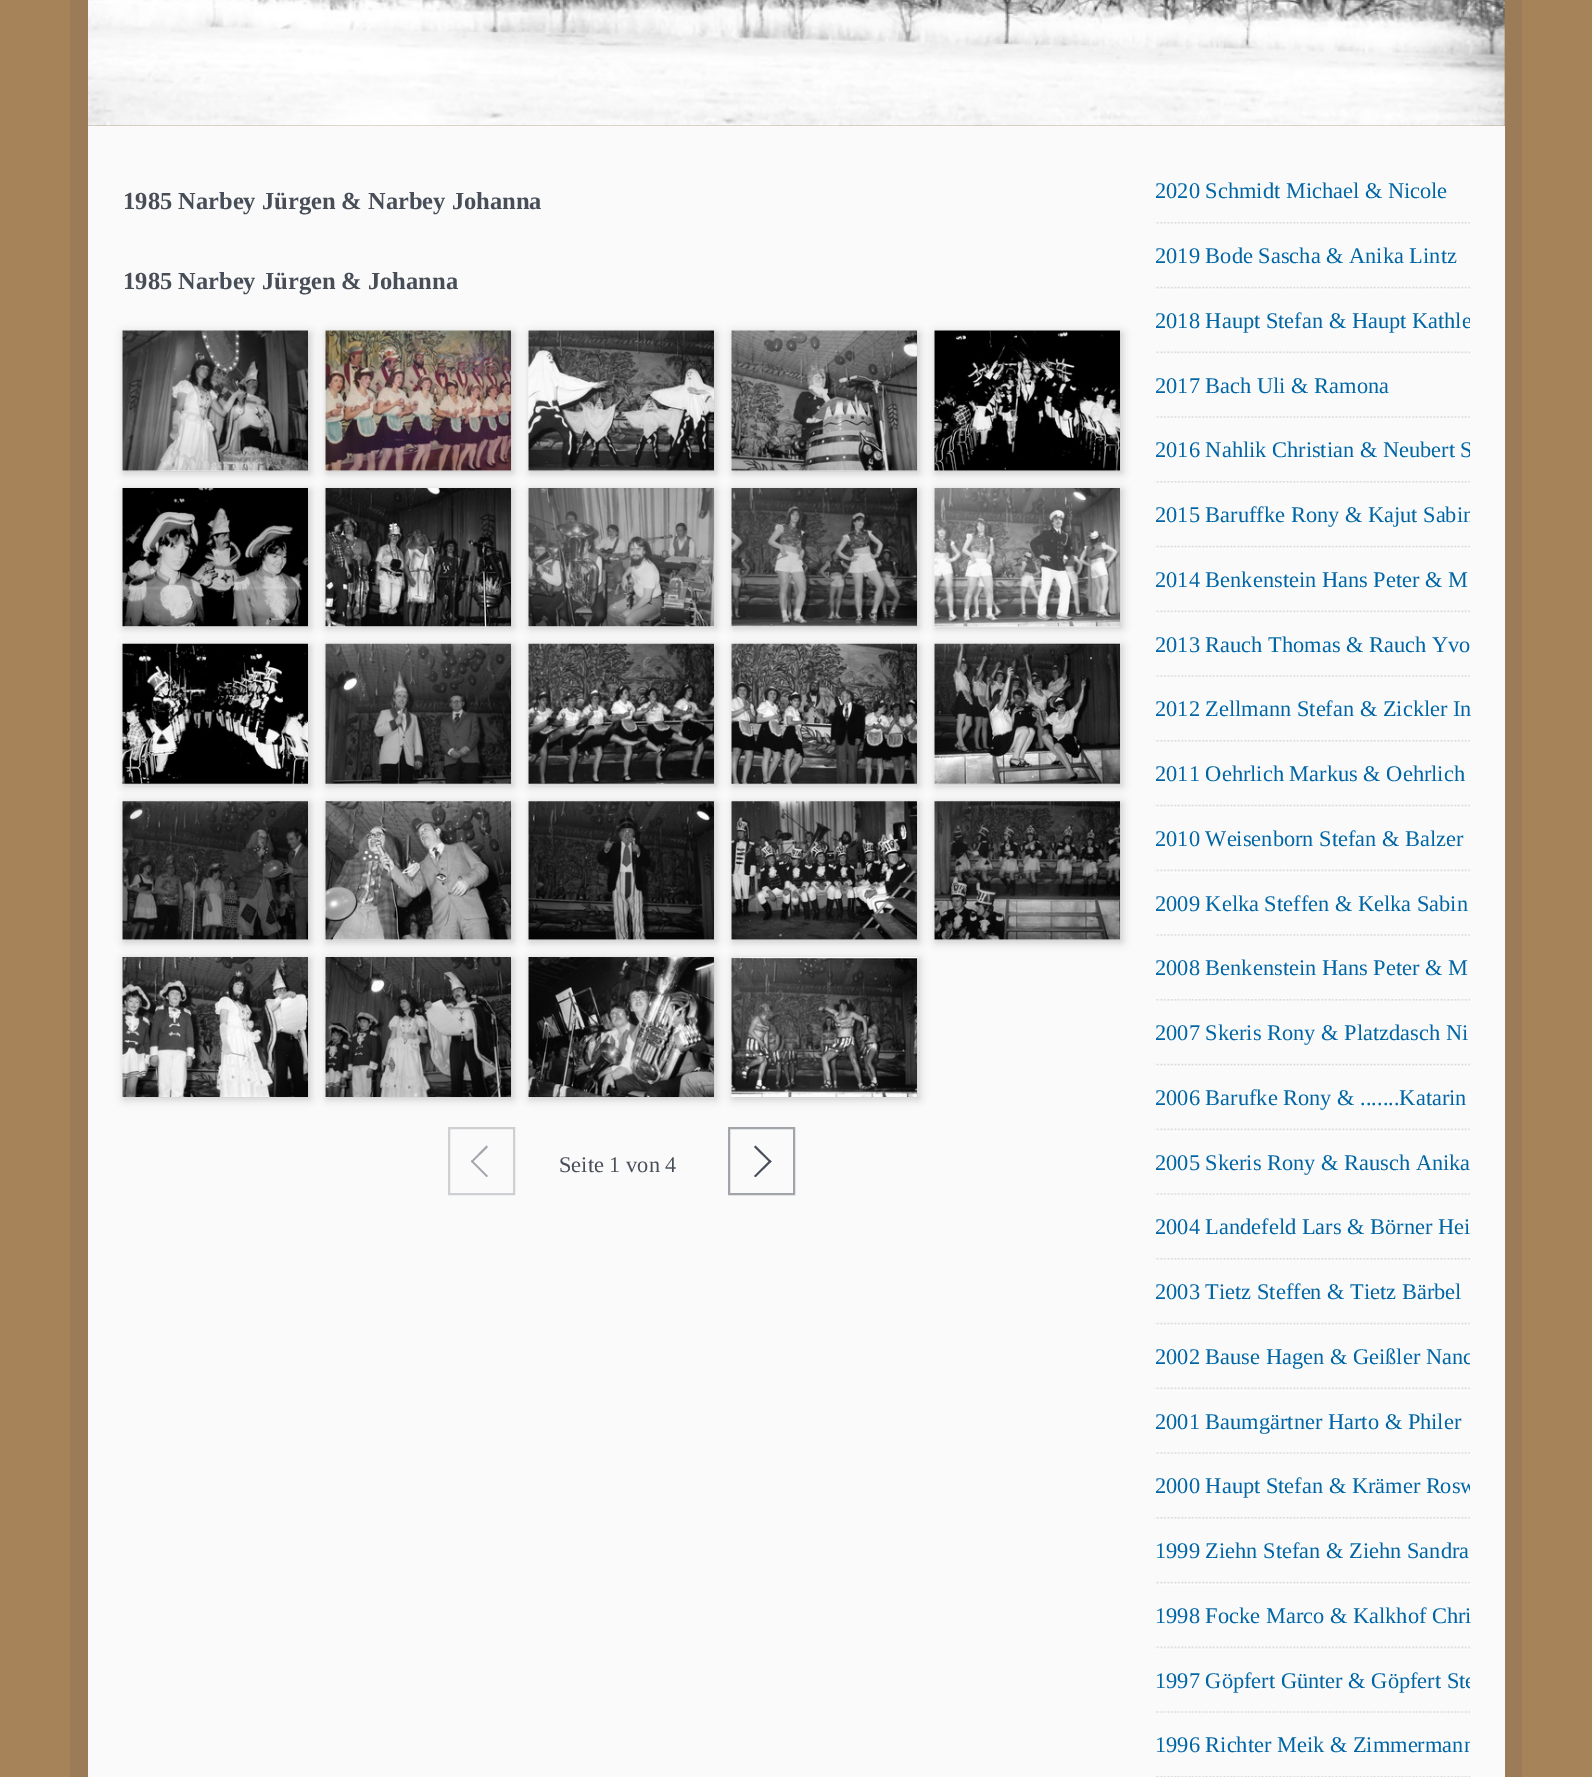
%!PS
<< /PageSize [1592 1777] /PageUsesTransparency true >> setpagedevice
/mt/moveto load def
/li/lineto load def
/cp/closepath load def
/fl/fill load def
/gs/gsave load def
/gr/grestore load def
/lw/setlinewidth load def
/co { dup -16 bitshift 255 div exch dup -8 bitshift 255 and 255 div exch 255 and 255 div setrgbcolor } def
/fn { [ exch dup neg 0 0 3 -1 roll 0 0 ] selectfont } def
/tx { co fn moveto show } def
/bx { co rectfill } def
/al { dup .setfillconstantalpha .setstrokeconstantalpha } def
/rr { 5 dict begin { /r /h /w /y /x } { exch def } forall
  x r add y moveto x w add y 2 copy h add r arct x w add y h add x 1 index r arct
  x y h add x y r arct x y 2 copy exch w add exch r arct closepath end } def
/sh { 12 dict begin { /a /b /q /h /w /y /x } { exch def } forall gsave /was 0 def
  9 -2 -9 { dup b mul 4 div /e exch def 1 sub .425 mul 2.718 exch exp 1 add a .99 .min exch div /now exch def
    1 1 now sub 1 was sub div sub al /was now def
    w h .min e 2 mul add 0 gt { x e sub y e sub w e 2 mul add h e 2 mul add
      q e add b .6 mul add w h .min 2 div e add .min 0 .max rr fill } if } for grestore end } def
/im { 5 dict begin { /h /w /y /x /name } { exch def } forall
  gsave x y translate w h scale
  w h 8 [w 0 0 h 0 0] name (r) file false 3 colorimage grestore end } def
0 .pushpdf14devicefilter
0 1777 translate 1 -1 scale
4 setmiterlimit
0 0 1592 1777 16#A68359 bx
70 0 1452 1777 16#9C7C58 bx
(media/1.raw) 88 0 1417 126 im
88 126 1417 1651 16#FAFAFA bx
16#000000 co
124 333 186 140 0 4.5 .2 sh
(media/2.raw) 122 330 186 141 im
327 333 186 140 0 4.5 .2 sh
(media/3.raw) 325 330 186 141 im
530 333 186 140 0 4.5 .2 sh
(media/4.raw) 528 330 186 141 im
733 333 186 140 0 4.5 .2 sh
(media/5.raw) 731 330 186 141 im
936 333 186 140 0 4.5 .2 sh
(media/6.raw) 934 330 186 141 im
124 490 186 138 0 4.5 .2 sh
(media/7.raw) 122 488 186 139 im
327 490 186 138 0 4.5 .2 sh
(media/8.raw) 325 488 186 139 im
530 490 186 138 0 4.5 .2 sh
(media/9.raw) 528 488 186 139 im
733 490 186 138 0 4.5 .2 sh
(media/10.raw) 731 488 186 139 im
936 490 186 138 0 4.5 .2 sh
(media/11.raw) 934 488 186 139 im
124 646 186 140 0 4.5 .2 sh
(media/12.raw) 122 643 186 141 im
327 646 186 140 0 4.5 .2 sh
(media/13.raw) 325 643 186 141 im
530 646 186 140 0 4.5 .2 sh
(media/14.raw) 528 643 186 141 im
733 646 186 140 0 4.5 .2 sh
(media/15.raw) 731 643 186 141 im
936 646 186 140 0 4.5 .2 sh
(media/16.raw) 934 643 186 141 im
124 803 186 139 0 4.5 .2 sh
(media/17.raw) 122 801 186 139 im
327 803 186 139 0 4.5 .2 sh
(media/18.raw) 325 801 186 139 im
530 803 186 139 0 4.5 .2 sh
(media/19.raw) 528 801 186 139 im
733 803 186 139 0 4.5 .2 sh
(media/20.raw) 731 801 186 139 im
936 803 186 139 0 4.5 .2 sh
(media/21.raw) 934 801 186 139 im
124 959 186 140 0 4.5 .2 sh
(media/22.raw) 122 957 186 140 im
327 959 186 140 0 4.5 .2 sh
(media/23.raw) 325 957 186 140 im
530 959 186 140 0 4.5 .2 sh
(media/24.raw) 528 957 186 140 im
733 959 186 140 0 4.5 .2 sh
(media/25.raw) 731 957 186 140 im
16#CDCFD2 co
2 lw
449 1128 65 66 rectstroke
16#A1A4A9 co
486.5 1177 mt 471 1161.5 li 472 1160 li 488 1176 li cp fl
472 1162.5 mt 471 1161.5 li 486.5 1145.5 li 488 1147 li cp fl
729 1128 65 66 rectstroke
16#474E58 co
755.5 1145.5 mt 771.5 1161.5 li 770 1162.5 li 754 1147 li cp fl
770 1160 mt 771.5 1161.5 li 755.5 1177 li 754 1176 li cp fl
(media/26.raw) 1155 222 315 2 im
(media/27.raw) 1155 286 315 4 im
(media/28.raw) 1155 351 315 4 im
(media/29.raw) 1155 416 315 2 im
(media/26.raw) 1155 481 315 2 im
(media/27.raw) 1155 545 315 4 im
(media/28.raw) 1155 610 315 4 im
(media/29.raw) 1155 675 315 2 im
(media/26.raw) 1155 740 315 2 im
(media/27.raw) 1155 804 315 4 im
(media/28.raw) 1155 869 315 4 im
(media/29.raw) 1155 934 315 2 im
(media/26.raw) 1155 999 315 2 im
(media/27.raw) 1155 1063 315 4 im
(media/28.raw) 1155 1128 315 4 im
(media/29.raw) 1155 1193 315 2 im
(media/26.raw) 1155 1258 315 2 im
(media/27.raw) 1155 1322 315 4 im
(media/28.raw) 1155 1387 315 4 im
(media/29.raw) 1155 1452 315 2 im
(media/26.raw) 1155 1517 315 2 im
(media/27.raw) 1155 1581 315 4 im
(media/28.raw) 1155 1646 315 4 im
(media/29.raw) 1155 1711 315 2 im
(media/30.raw) 1155 1776 315 1 im
(1985 Narbey Jürgen & Narbey Johanna) 123 209 /LiberationSerif-Bold 24.5 16#474E58 tx
(1985 Narbey Jürgen & Johanna) 123 289 /LiberationSerif-Bold 24.5 16#474E58 tx
(Seite 1 von 4) 559 1172 /LiberationSerif-Regular 22.4 16#474E58 tx
(2020 Schmidt Michael & Nicole) 1155 198 /LiberationSerif-Regular 22.4 16#0065A5 tx
(2019 Bode Sascha & Anika Lintz) 1155 263 /LiberationSerif-Regular 22.4 16#0065A5 tx
gs
1120 161 350 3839 rectclip
(2018 Haupt Stefan & Haupt Kathle) 1155 328 /LiberationSerif-Regular 22.4 16#0065A5 tx
gr
(2017 Bach Uli & Ramona) 1155 393 /LiberationSerif-Regular 22.4 16#0065A5 tx
gs
1120 161 350 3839 rectclip
(2016 Nahlik Christian & Neubert S) 1155 457 /LiberationSerif-Regular 22.4 16#0065A5 tx
(2015 Baruffke Rony & Kajut Sabin) 1155 522 /LiberationSerif-Regular 22.4 16#0065A5 tx
gr
(2014 Benkenstein Hans Peter & M) 1155 587 /LiberationSerif-Regular 22.4 16#0065A5 tx
(2013 Rauch Thomas & Rauch Yvo) 1155 652 /LiberationSerif-Regular 22.4 16#0065A5 tx
(2012 Zellmann Stefan & Zickler In) 1155 716 /LiberationSerif-Regular 22.4 16#0065A5 tx
(2011 Oehrlich Markus & Oehrlich) 1155 781 /LiberationSerif-Regular 22.4 16#0065A5 tx
(2010 Weisenborn Stefan & Balzer) 1155 846 /LiberationSerif-Regular 22.4 16#0065A5 tx
(2009 Kelka Steffen & Kelka Sabin) 1155 911 /LiberationSerif-Regular 22.4 16#0065A5 tx
(2008 Benkenstein Hans Peter & M) 1155 975 /LiberationSerif-Regular 22.4 16#0065A5 tx
(2007 Skeris Rony & Platzdasch Ni) 1155 1040 /LiberationSerif-Regular 22.4 16#0065A5 tx
(2006 Barufke Rony & .......Katarin) 1155 1105 /LiberationSerif-Regular 22.4 16#0065A5 tx
(2005 Skeris Rony & Rausch Anika) 1155 1170 /LiberationSerif-Regular 22.4 16#0065A5 tx
(2004 Landefeld Lars & Börner Hei) 1155 1234 /LiberationSerif-Regular 22.4 16#0065A5 tx
(2003 Tietz Steffen & Tietz Bärbel) 1155 1299 /LiberationSerif-Regular 22.4 16#0065A5 tx
gs
1120 161 350 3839 rectclip
(2002 Bause Hagen & Geißler Nanc) 1155 1364 /LiberationSerif-Regular 22.4 16#0065A5 tx
gr
(2001 Baumgärtner Harto & Philer) 1155 1429 /LiberationSerif-Regular 22.4 16#0065A5 tx
gs
1120 161 350 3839 rectclip
(2000 Haupt Stefan & Krämer Rosw) 1155 1493 /LiberationSerif-Regular 22.4 16#0065A5 tx
gr
(1999 Ziehn Stefan & Ziehn Sandra) 1155 1558 /LiberationSerif-Regular 22.4 16#0065A5 tx
(1998 Focke Marco & Kalkhof Chri) 1155 1623 /LiberationSerif-Regular 22.4 16#0065A5 tx
gs
1120 161 350 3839 rectclip
(1997 Göpfert Günter & Göpfert Ste) 1155 1688 /LiberationSerif-Regular 22.4 16#0065A5 tx
(1996 Richter Meik & Zimmermann) 1155 1752 /LiberationSerif-Regular 22.4 16#0065A5 tx
gr
.poppdf14devicefilter showpage
